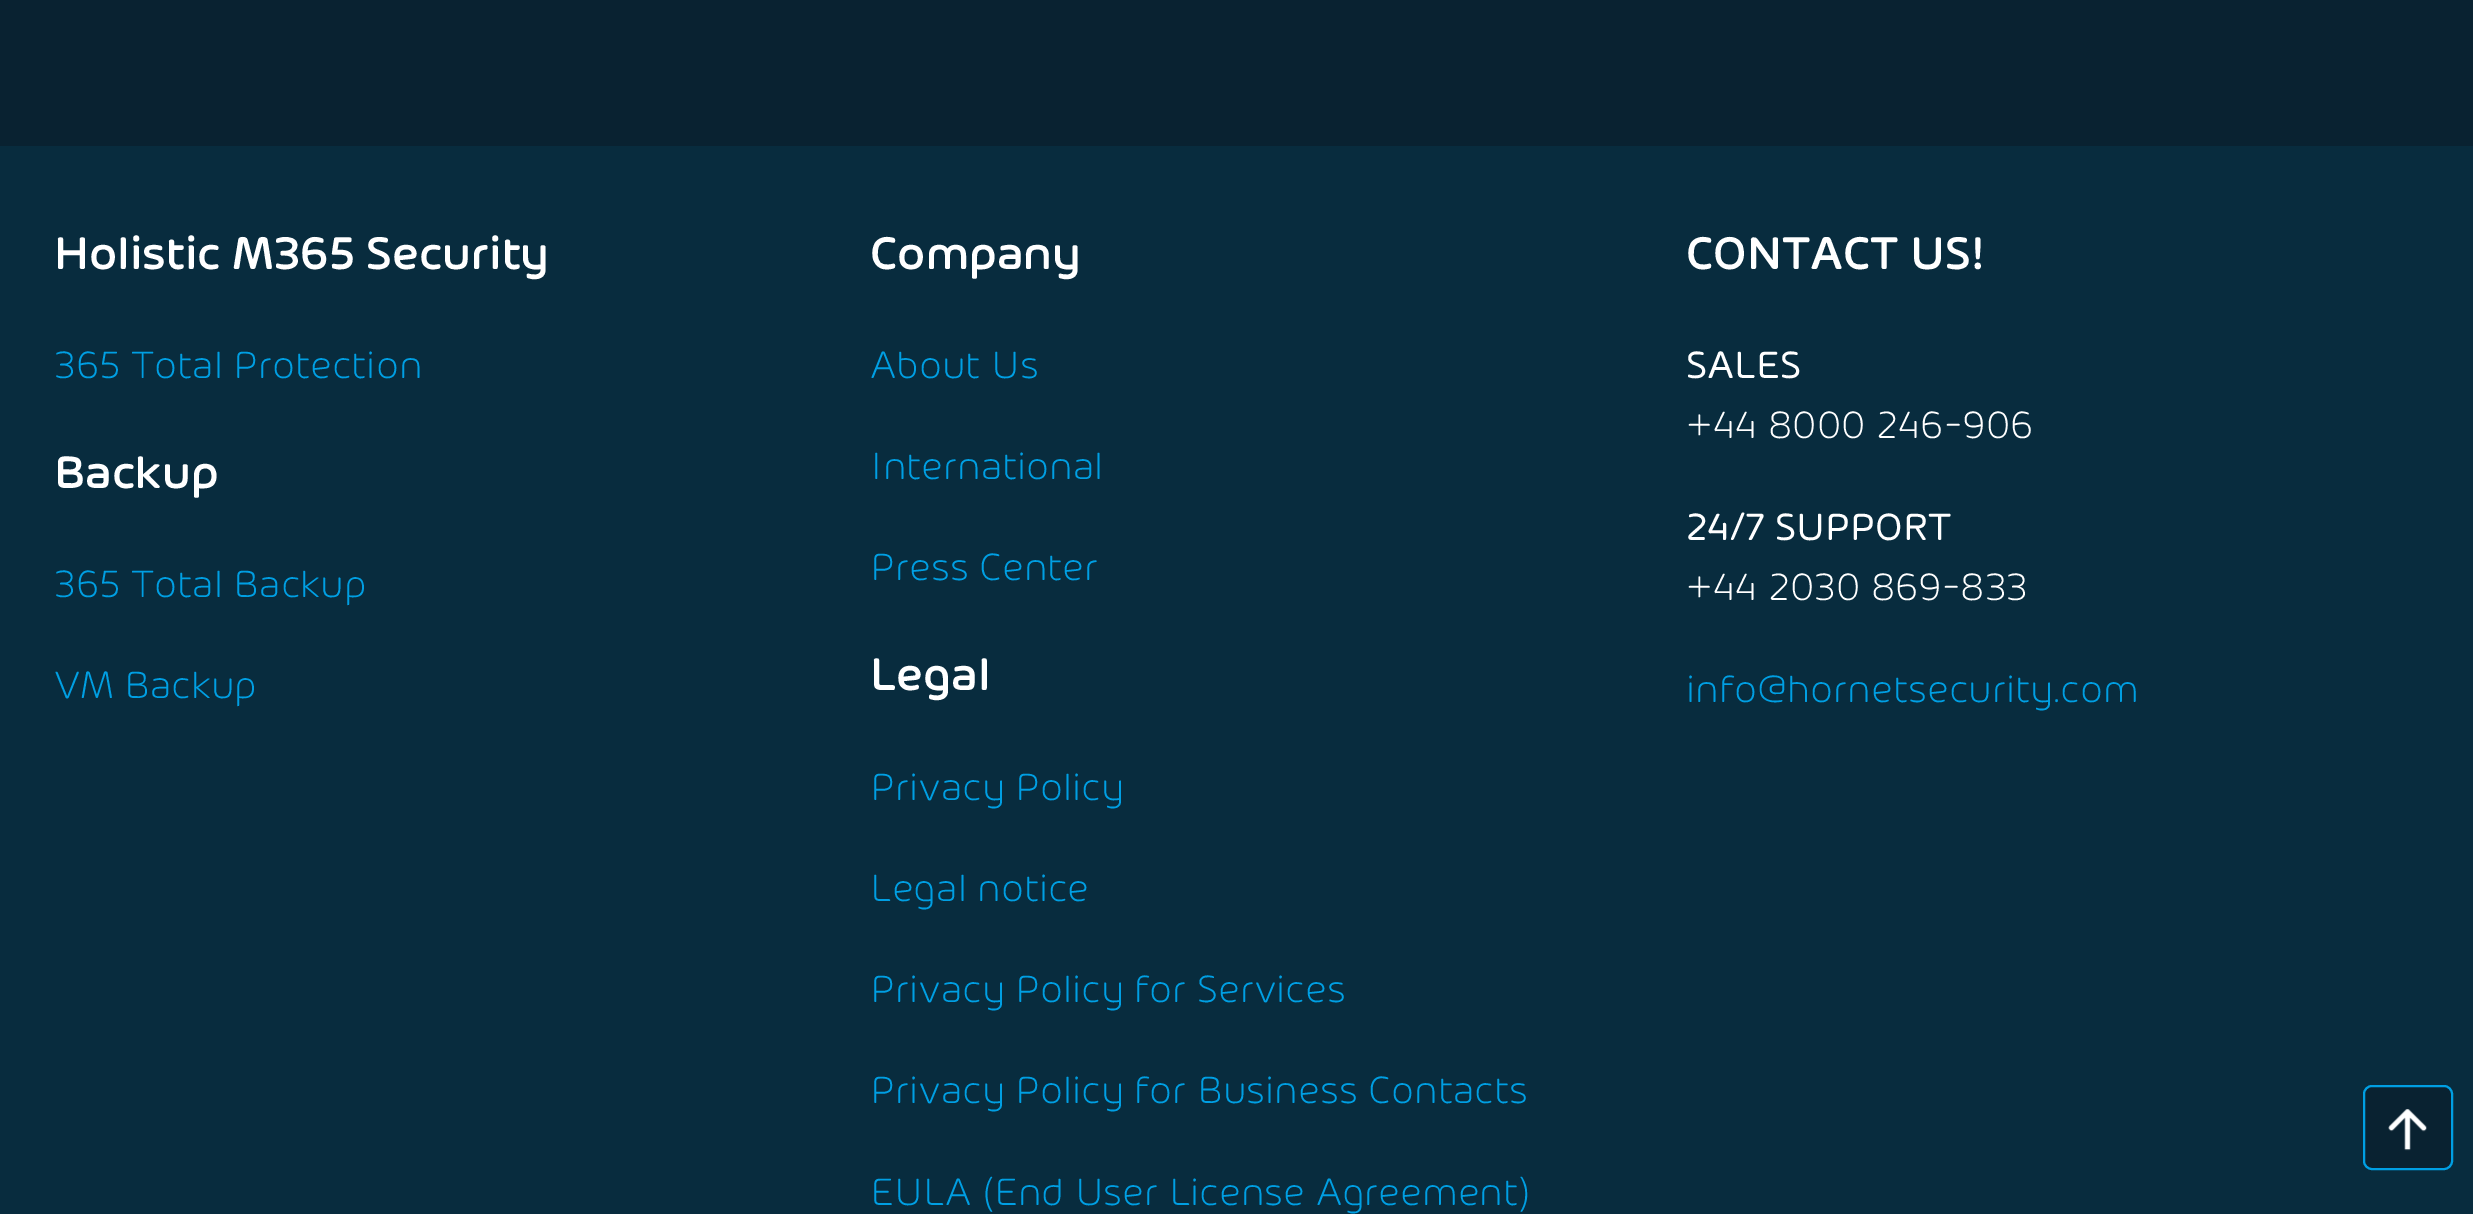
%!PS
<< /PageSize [2473 1214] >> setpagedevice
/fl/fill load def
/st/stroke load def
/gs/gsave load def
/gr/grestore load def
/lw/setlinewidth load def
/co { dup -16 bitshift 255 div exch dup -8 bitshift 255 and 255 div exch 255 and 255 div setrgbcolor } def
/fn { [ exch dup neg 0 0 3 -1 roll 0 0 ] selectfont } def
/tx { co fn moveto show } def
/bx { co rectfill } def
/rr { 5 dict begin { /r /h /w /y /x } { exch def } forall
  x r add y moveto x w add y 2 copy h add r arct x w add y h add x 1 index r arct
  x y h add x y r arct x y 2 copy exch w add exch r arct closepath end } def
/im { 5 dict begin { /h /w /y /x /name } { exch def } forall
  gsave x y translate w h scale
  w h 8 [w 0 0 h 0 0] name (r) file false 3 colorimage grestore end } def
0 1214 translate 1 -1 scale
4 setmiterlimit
0 0 2473 1214 16#092231 bx
0 146 2473 1068 16#082C3E bx
16#092231 co
2364 1086 88 83 8 rr gs fl gr
16#009FE3 co
2 lw
st
(media/1.raw) 2388 1109 39 42 im
(Holistic M365 Security) 54 269 /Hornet-Medium 48.75 16#FFFFFF tx
(365 Total Protection) 54 378 /Hornet-Light 40.5 16#009FE3 tx
(Backup) 54 488 /Hornet-Medium 48.75 16#FFFFFF tx
(365 Total Backup) 54 597 /Hornet-Light 40.5 16#009FE3 tx
(VM Backup) 54 698 /Hornet-Light 40.5 16#009FE3 tx
(Company) 870 269 /Hornet-Medium 48.75 16#FFFFFF tx
(About Us) 870 378 /Hornet-Light 40.5 16#009FE3 tx
(International) 870 479 /Hornet-Light 40.5 16#009FE3 tx
(Press Center) 870 580 /Hornet-Light 40.5 16#009FE3 tx
(Legal) 870 690 /Hornet-Medium 48.75 16#FFFFFF tx
(Privacy Policy) 870 800 /Hornet-Light 40.5 16#009FE3 tx
(Legal notice) 870 901 /Hornet-Light 40.5 16#009FE3 tx
(Privacy Policy for Services) 870 1002 /Hornet-Light 40.5 16#009FE3 tx
(Privacy Policy for Business Contacts) 870 1103 /Hornet-Light 40.5 16#009FE3 tx
(EULA \(End User License Agreement\)) 870 1205 /Hornet-Light 40.5 16#009FE3 tx
(CONTACT US!) 1686 269 /Hornet-Medium 48.75 16#FFFFFF tx
(SALES) 1686 378 /Hornet-Regular 40.5 16#FFFFFF tx
(+44 8000 246-906) 1686 438 /Hornet-Light 40.5 16#FFFFFF tx
(24/7) 1686 540 /Hornet-Regular 40.5 16#FFFFFF tx
(SUPPORT) 1775 540 /Hornet-Regular 40.5 16#FFFFFF tx
(+44 2030 869-833) 1686 600 /Hornet-Light 40.5 16#FFFFFF tx
(info@hornetsecurity.com) 1686 702 /Hornet-Light 40.5 16#009FE3 tx
showpage
